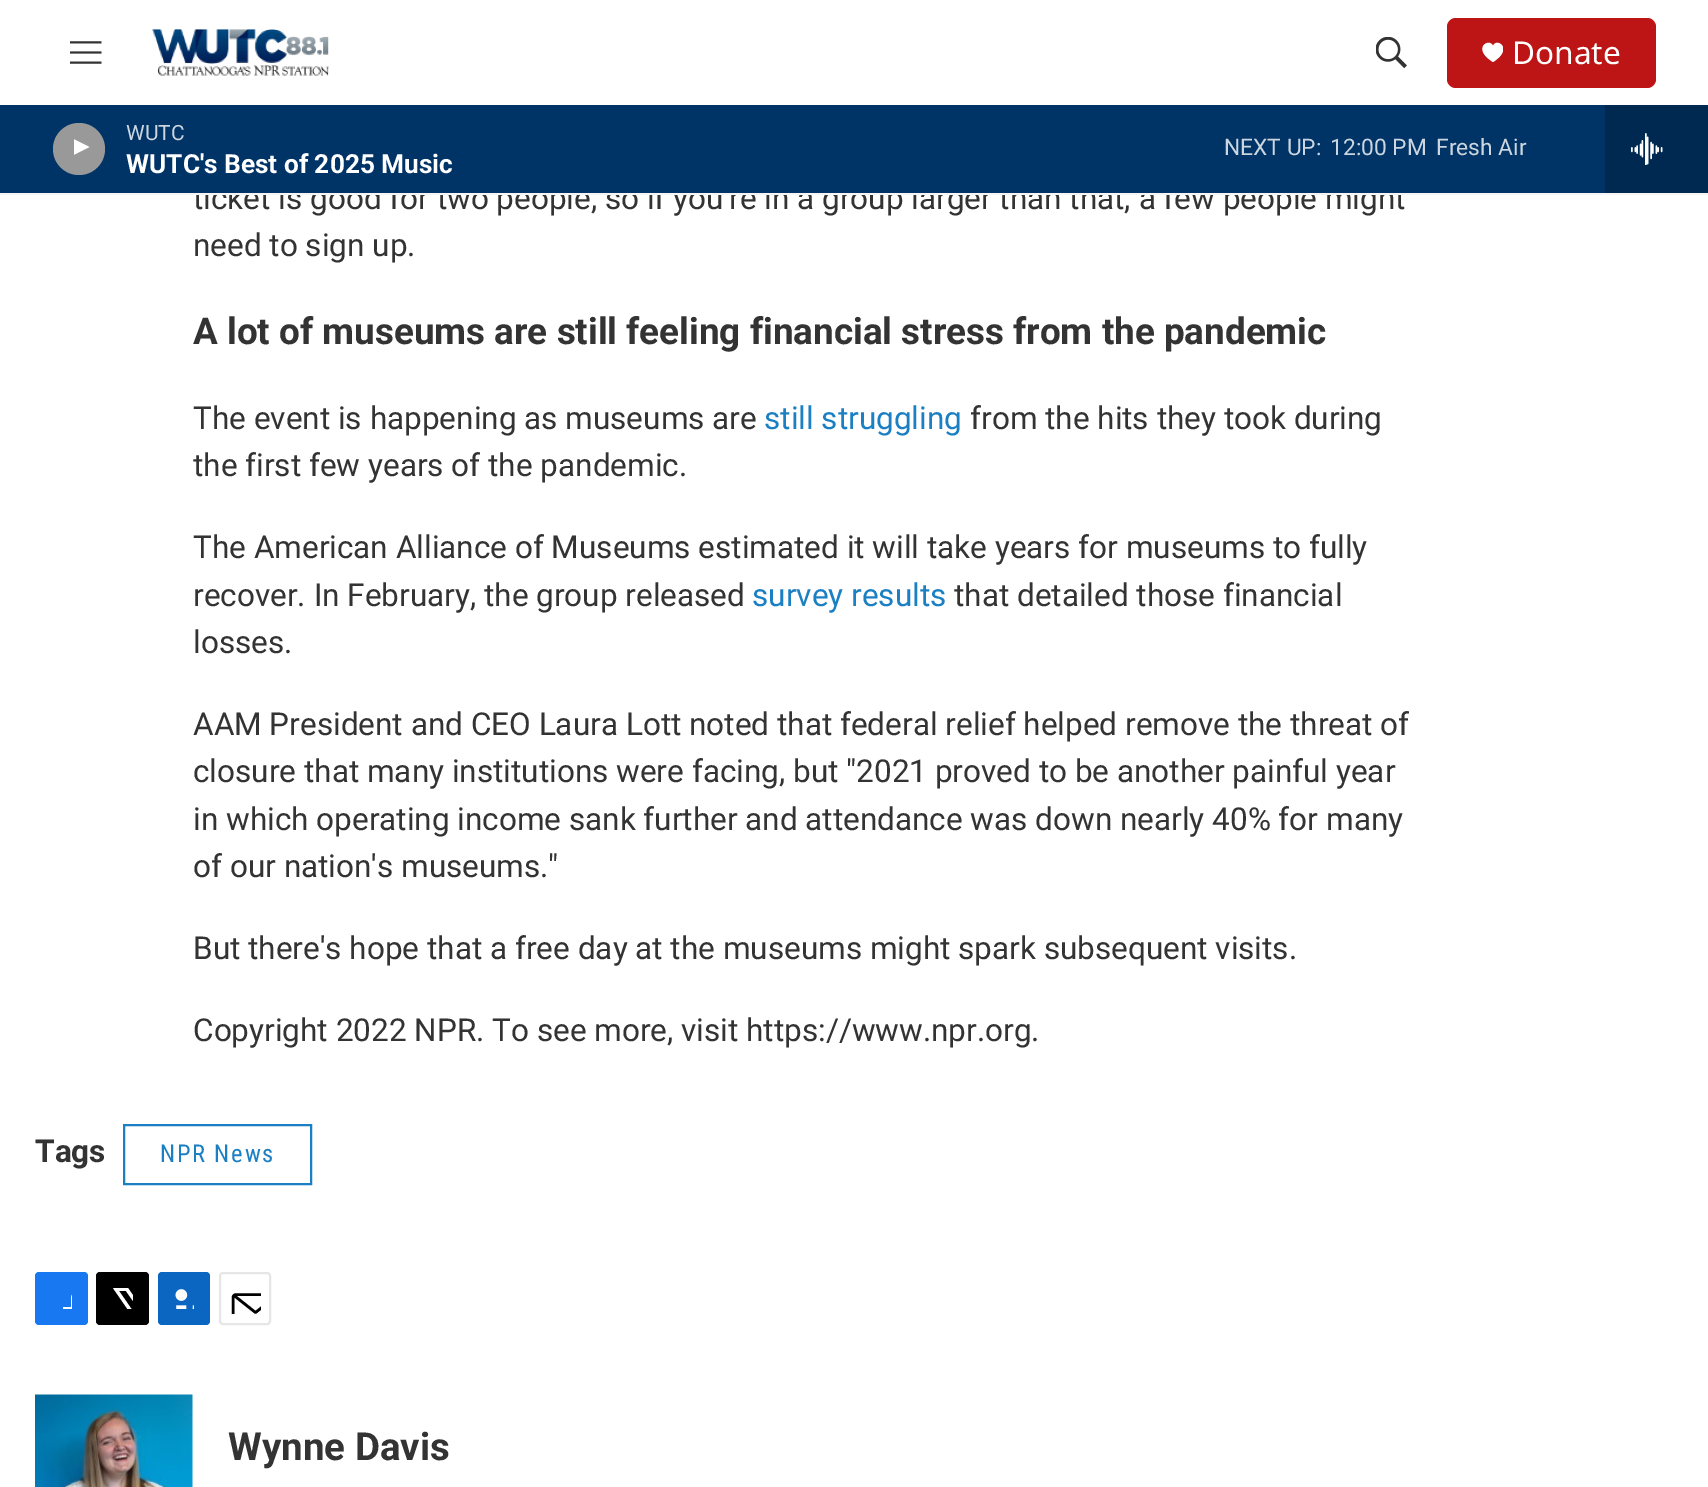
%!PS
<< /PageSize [1708 1487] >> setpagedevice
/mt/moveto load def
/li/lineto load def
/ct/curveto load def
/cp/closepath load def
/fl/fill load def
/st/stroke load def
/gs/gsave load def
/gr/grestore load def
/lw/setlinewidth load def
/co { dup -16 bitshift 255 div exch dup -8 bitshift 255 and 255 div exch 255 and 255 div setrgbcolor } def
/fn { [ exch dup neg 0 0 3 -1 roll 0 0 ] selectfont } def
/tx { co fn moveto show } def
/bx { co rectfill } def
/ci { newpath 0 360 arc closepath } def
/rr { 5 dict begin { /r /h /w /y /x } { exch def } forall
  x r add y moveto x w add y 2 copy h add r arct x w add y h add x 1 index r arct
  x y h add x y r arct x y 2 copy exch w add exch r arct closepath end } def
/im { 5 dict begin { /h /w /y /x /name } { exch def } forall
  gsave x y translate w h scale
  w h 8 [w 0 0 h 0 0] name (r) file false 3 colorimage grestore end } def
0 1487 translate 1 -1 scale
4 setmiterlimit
0 0 1708 1487 16#FFFFFF bx
(media/1.raw) 70 41 32 23 im
(media/2.raw) 152 29 177 47 im
(media/3.raw) 1376 37 31 31 im
16#BD1515 co
1447 18 209 70 9 rr fl
gs
1482 42 21 21 rectclip
16#FFFFFF co
1493 46 mt 1489.5 37 1471 48.5 1493 62 ct 1514.5 48.5 1496 37 1493 46 ct cp fl
gr
1605 105 103 88 16#002952 bx
(media/4.raw) 1631 133 32 32 im
16#1A7FC3 co
2 lw
124 1125 187 59 rectstroke
16#1778F2 co
35 1272 53 53 4 rr fl
gs
51 1288 21 21 rectclip
16#FFFFFF co
80 1325 mt 71 1325 li 71 1316 li 63 1316 li 63 1307 li 71 1307 li 71 1298 li 72 1289.5 80.5 1288 88 1289 ct 88 1297 li 78.5 1297 80 1299.5 80 1307 ct 88 1307 li 87 1316 li 80 1316 li cp fl
gr
16#000000 co
96 1272 53 53 4 rr fl
gs
112 1288 21 21 rectclip
16#FFFFFF co
143 1310 mt 149 1318.5 li 149 1320 149 1322 148.5 1323 ct 126 1291 li 119 1291 li 142.5 1325 li 138.5 1325 li 135 1320 li 130.5 1325 li 126 1325 li 133 1317 li 113 1288 li 128 1288 li 141 1307 li 149 1298 li 149 1303 li cp fl
gr
16#0A66C1 co
158 1272 52 53 4 rr fl
(media/5.raw) 175 1289 19 20 im
16#E6E6E6 co
220 1273 50 51 3 rr st
gs
229 1283 32 31 rectclip
16#000000 co
2.6 lw
1 setlinecap
1 setlinejoin
278 1321 mt 278 1323 276.5 1324.5 275 1324.5 ct 236 1324.5 li 234.5 1324.5 233 1323 233 1321 ct 233 1297.5 li 233 1296 234.5 1294.5 236 1294.5 ct 275 1294.5 li 276.5 1294.5 278 1296 278 1297.5 ct cp 277 1295.5 mt 255.5 1312.5 li 234 1295.5 li st
gr
(media/6.raw) 35 1394 158 93 im
(Donate) 1512 64 /NotoSans-Regular 31.5 16#FFFFFF tx
(ticket is good for two people, so if you're in a group larger than that, a few people might) 193 209 /Roboto-Regular 31.5 16#333333 tx
0 105 1605 88 16#003366 bx
(Fresh Air) 1436 155 /Roboto-Regular 22.75 16#CCD6E0 tx
(12:00 PM) 1330 155 /Roboto-Regular 22.75 16#CCD6E0 tx
(NEXT UP:) 1224 155 /Roboto-Regular 22.75 16#CCD6E0 tx
(WUTC) 126 140 /Roboto-Regular 21 16#CCD6E0 tx
16#999999 co
79 149 26 ci fl
gs
74 137 20 26 rectclip
16#FFFFFF co
72.5 138.5 mt 89.5 147 li 72.5 155.5 li cp fl
gr
(WUTC's Best of 2025 Music) 126 173 /Roboto-Bold 26.25 16#FFFFFF tx
0 193 1708 2 16#F5F5F5 bx
(need to sign up.) 193 256 /Roboto-Regular 31.5 16#333333 tx
(A lot of museums are still feeling financial stress from the pandemic) 193 344 /Roboto-Bold 36.85 16#333333 tx
(The event is happening as museums are) 193 429 /Roboto-Regular 31.5 16#333333 tx
(still struggling) 764 429 /Roboto-Regular 31.5 16#1A7FC3 tx
(from the hits they took during) 970 429 /Roboto-Regular 31.5 16#333333 tx
(the first few years of the pandemic.) 193 476 /Roboto-Regular 31.5 16#333333 tx
(The American Alliance of Museums estimated it will take years for museums to fully) 193 558 /Roboto-Regular 31.5 16#333333 tx
(recover. In February, the group released) 193 606 /Roboto-Regular 31.5 16#333333 tx
(survey results) 752 606 /Roboto-Regular 31.5 16#1A7FC3 tx
(that detailed those financial) 954 606 /Roboto-Regular 31.5 16#333333 tx
(losses.) 193 653 /Roboto-Regular 31.5 16#333333 tx
(AAM President and CEO Laura Lott noted that federal relief helped remove the threat of) 193 735 /Roboto-Regular 31.5 16#333333 tx
(closure that many institutions were facing, but "2021 proved to be another painful year) 193 782 /Roboto-Regular 31.5 16#333333 tx
(in which operating income sank further and attendance was down nearly 40% for many) 193 830 /Roboto-Regular 31.5 16#333333 tx
(of our nation's museums.") 193 877 /Roboto-Regular 31.5 16#333333 tx
(But there's hope that a free day at the museums might spark subsequent visits.) 193 959 /Roboto-Regular 31.5 16#333333 tx
(Copyright 2022 NPR. To see more, visit https://www.npr.org.) 193 1041 /Roboto-Regular 31.5 16#333333 tx
(Tags) 35 1162 /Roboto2-Bold 31.5 16#333333 tx
/RobotoCondensed-Regular 24.5 fn
16#1A7FC3 co
160 1162 mt 1.75 0 (NPR News) ashow
(Wynne Davis) 228 1460 /Roboto2-Bold 38.5 16#333333 tx
showpage
